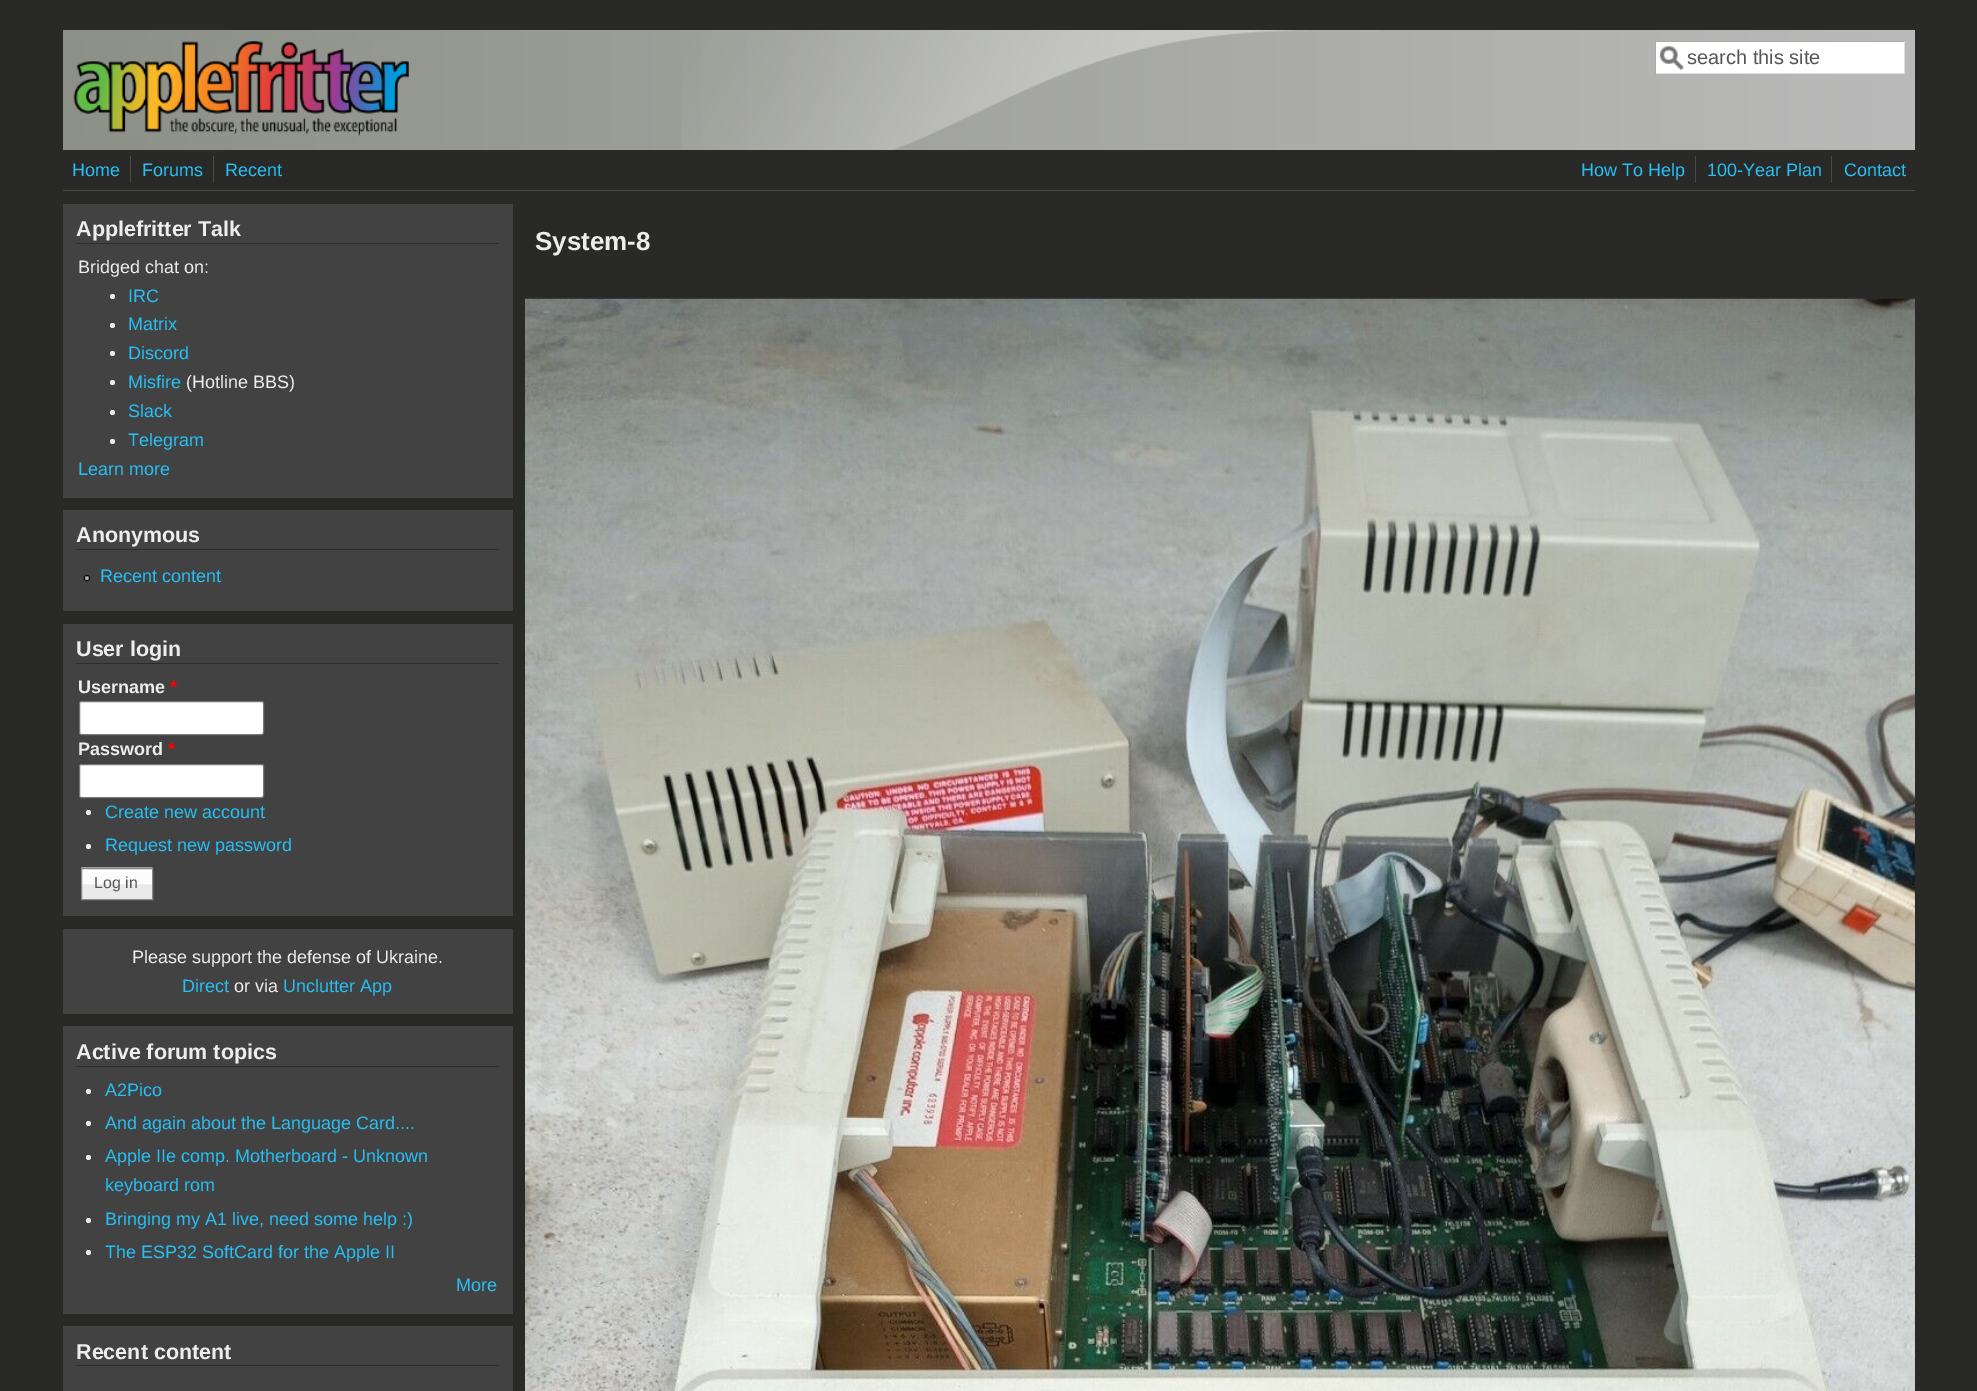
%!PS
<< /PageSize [1977 1391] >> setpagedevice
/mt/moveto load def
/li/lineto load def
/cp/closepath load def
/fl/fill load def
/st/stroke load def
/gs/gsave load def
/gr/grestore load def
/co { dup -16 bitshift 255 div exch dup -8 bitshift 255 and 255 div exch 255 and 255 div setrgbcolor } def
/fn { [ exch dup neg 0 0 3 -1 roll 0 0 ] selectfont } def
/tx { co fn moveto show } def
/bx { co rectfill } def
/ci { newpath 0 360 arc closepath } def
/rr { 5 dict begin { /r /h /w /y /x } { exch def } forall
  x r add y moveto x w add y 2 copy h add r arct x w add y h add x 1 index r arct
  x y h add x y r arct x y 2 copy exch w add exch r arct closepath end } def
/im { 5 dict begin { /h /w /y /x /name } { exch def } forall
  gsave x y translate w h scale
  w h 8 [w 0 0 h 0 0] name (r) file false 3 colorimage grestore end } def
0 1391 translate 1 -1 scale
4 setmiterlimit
0 0 1977 1391 16#292928 bx
gs 63 30 mt 1915 30 li 1915 150 li 63 150 li cp clip newpath
<< /ShadingType 2 /ColorSpace /DeviceRGB /Coords [63 90 1915 90] /Extend [true true] /Function << /FunctionType 2 /Domain [0 1] /C0 [.553 .565 .529] /C1 [.729 .729 .729] /N 1 >> >> shfill gr
(media/1.raw) 681 30 699 120 im
(media/2.raw) 73 41 336 95 im
1656 42 248 31 16#FFFFFF bx
(media/3.raw) 1659 46 25 25 im
1655 41 250 1 16#AAAAAA bx
1904 41 1 33 16#DDDDDD bx
1655 73 250 1 16#DDDDDD bx
1655 41 1 33 16#AAAAAA bx
63 190 1852 1 16#494A45 bx
130 156 1 27 16#494A45 bx
213 156 1 27 16#494A45 bx
1695 156 1 27 16#494A45 bx
1831 156 1 27 16#494A45 bx
63 204 450 294 16#424242 bx
76 243 423 1 16#2C2C2C bx
16#ECEDEC co
112.5 296.5 2.5 ci fl
112.5 325.5 2.5 ci fl
112.5 353.5 2.5 ci fl
112.5 382.5 2.5 ci fl
112.5 412.5 2.5 ci fl
112.5 441.5 2.5 ci fl
63 510 450 101 16#424242 bx
76 549 423 1 16#2C2C2C bx
(media/4.raw) 83 575 8 7 im
63 624 450 292 16#424242 bx
76 663 423 1 16#2C2C2C bx
16#FFFFFF co
79.5 701.5 184 33 2 rr gs fl gr
16#767676 co
st
16#FFFFFF co
79.5 764.5 184 33 2 rr gs fl gr
16#767676 co
st
16#ECEDEC co
88.5 812.5 2.5 ci fl
88.5 846.5 2.5 ci fl
(media/5.raw) 81 867 72 32 im
16#888888 co
81.5 868.5 71 31 rectstroke
63 929 450 85 16#424242 bx
63 1026 450 288 16#424242 bx
76 1066 423 1 16#2C2C2C bx
16#ECEDEC co
88.5 1091.5 2.5 ci fl
88.5 1123.5 2.5 ci fl
88.5 1157.5 2.5 ci fl
88.5 1220.5 2.5 ci fl
88.5 1252.5 2.5 ci fl
63 1326 450 65 16#424242 bx
76 1365 423 1 16#2C2C2C bx
(media/6.raw) 525 298 1390 1093 im
(search this site) 1687 64 /LiberationSans-Regular 20 16#555555 tx
(Home) 72 176 /LiberationSans-Regular 18 16#26C0F7 tx
(Forums) 142 176 /LiberationSans-Regular 18 16#26C0F7 tx
(Recent) 225 176 /LiberationSans-Regular 18 16#26C0F7 tx
(How To Help) 1581 176 /LiberationSans-Regular 18 16#26C0F7 tx
(100-Year Plan) 1707 176 /LiberationSans-Regular 18 16#26C0F7 tx
(Contact) 1844 176 /LiberationSans-Regular 18 16#26C0F7 tx
(Applefritter Talk) 76 236 /LiberationSans-Bold 21.5 16#ECEDEC tx
(Bridged chat on:) 78 273 /LiberationSans-Regular 18 16#ECEDEC tx
(IRC) 128 302 /LiberationSans-Regular 18 16#26C0F7 tx
(Matrix) 128 330 /LiberationSans-Regular 18 16#26C0F7 tx
(Discord) 128 359 /LiberationSans-Regular 18 16#26C0F7 tx
(Misfire) 128 388 /LiberationSans-Regular 18 16#26C0F7 tx
(\(Hotline BBS\)) 186 388 /LiberationSans-Regular 18 16#ECEDEC tx
(Slack) 128 417 /LiberationSans-Regular 18 16#26C0F7 tx
(Telegram) 128 446 /LiberationSans-Regular 18 16#26C0F7 tx
(Learn more) 78 475 /LiberationSans-Regular 18 16#26C0F7 tx
(Anonymous) 76 542 /LiberationSans-Bold 21.5 16#ECEDEC tx
(Recent content) 100 582 /LiberationSans-Regular 18 16#26C0F7 tx
(User login) 76 656 /LiberationSans-Bold 21.5 16#ECEDEC tx
(Username) 78 693 /LiberationSans-Bold 18 16#ECEDEC tx
(*) 170 693 /LiberationSans-Bold 18 16#FF0000 tx
(Password) 78 755 /LiberationSans-Bold 18 16#ECEDEC tx
(*) 168 755 /LiberationSans-Bold 18 16#FF0000 tx
(Create new account) 105 818 /LiberationSans-Regular 18 16#26C0F7 tx
(Request new password) 105 851 /LiberationSans-Regular 18 16#26C0F7 tx
(Log in) 94 888 /LiberationSans-Regular 16 16#555555 tx
(Please support the defense of Ukraine.) 132 963 /LiberationSans-Regular 18 16#ECEDEC tx
(Direct) 182 992 /LiberationSans-Regular 18 16#26C0F7 tx
(or via) 234 992 /LiberationSans-Regular 18 16#ECEDEC tx
(Unclutter App) 283 992 /LiberationSans-Regular 18 16#26C0F7 tx
(Active forum topics) 76 1059 /LiberationSans-Bold 21.5 16#ECEDEC tx
(A2Pico) 105 1096 /LiberationSans-Regular 18 16#26C0F7 tx
(And again about the Language Card....) 105 1129 /LiberationSans-Regular 18 16#26C0F7 tx
(Apple IIe comp. Motherboard - Unknown) 105 1162 /LiberationSans-Regular 18 16#26C0F7 tx
(keyboard rom) 105 1191 /LiberationSans-Regular 18 16#26C0F7 tx
(Bringing my A1 live, need some help :\)) 105 1225 /LiberationSans-Regular 18 16#26C0F7 tx
(The ESP32 SoftCard for the Apple II) 105 1258 /LiberationSans-Regular 18 16#26C0F7 tx
(More) 456 1291 /LiberationSans-Regular 18 16#26C0F7 tx
(Recent content) 76 1359 /LiberationSans-Bold 21.5 16#ECEDEC tx
(System-8) 535 250 /LiberationSans-Bold 26 16#ECEDEC tx
showpage
